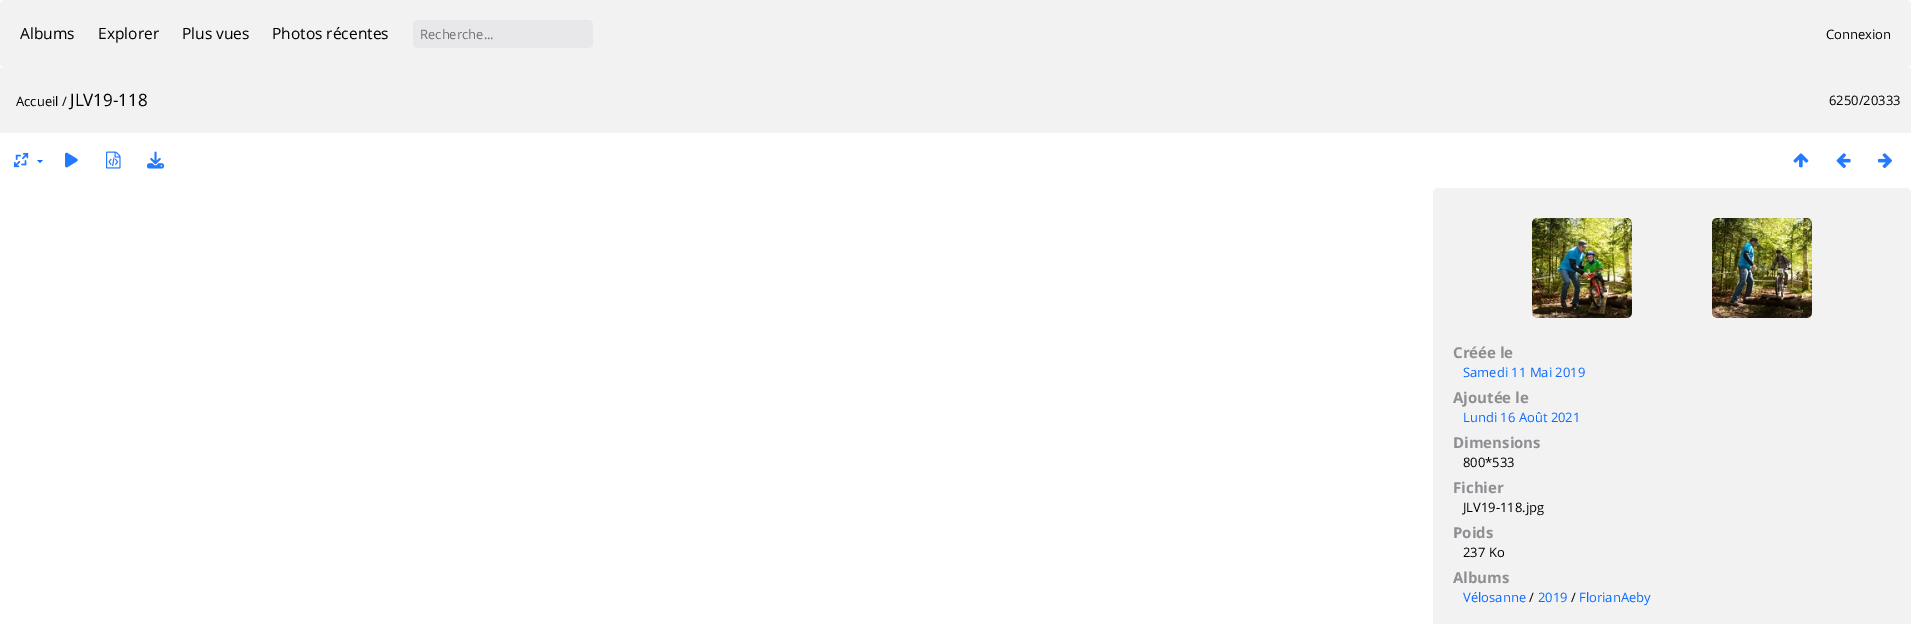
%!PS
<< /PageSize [1911 624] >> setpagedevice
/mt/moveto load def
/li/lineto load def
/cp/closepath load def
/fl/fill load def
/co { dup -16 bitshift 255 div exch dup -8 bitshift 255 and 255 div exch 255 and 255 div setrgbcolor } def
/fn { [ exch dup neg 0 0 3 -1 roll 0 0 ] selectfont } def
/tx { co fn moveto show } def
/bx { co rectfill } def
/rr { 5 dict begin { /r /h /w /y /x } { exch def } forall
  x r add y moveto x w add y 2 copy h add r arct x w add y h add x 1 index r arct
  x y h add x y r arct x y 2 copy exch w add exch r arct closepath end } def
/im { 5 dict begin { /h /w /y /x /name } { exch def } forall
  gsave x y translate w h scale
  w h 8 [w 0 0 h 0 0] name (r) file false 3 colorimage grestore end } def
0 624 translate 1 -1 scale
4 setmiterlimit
0 0 1911 624 16#FFFFFF bx
16#F2F2F2 co
0 0 1911 68 5 rr fl
16#E8E8EA co
413 20 180 28 5 rr fl
0 68 1911 65 16#F2F2F2 bx
(media/1.raw) 14 152 15 16 im
16#0B6AFF co
37 160 mt 43 160 li 40 163 li cp fl
(media/2.raw) 65 152 13 16 im
(media/3.raw) 106 151 15 18 im
(media/4.raw) 147 151 17 18 im
(media/5.raw) 1793 153 16 15 im
(media/6.raw) 1836 153 15 15 im
(media/7.raw) 1878 153 14 15 im
16#F2F2F2 co
1433 188 478 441 5 rr fl
(media/8.raw) 1532 218 100 100 im
(media/9.raw) 1712 218 100 100 im
(Albums) 20 39 /OpenSans-Regular 15.5 16#000000 tx
(Explorer) 98 39 /OpenSans-Regular 15.5 16#000000 tx
(Plus vues) 182 39 /OpenSans-Regular 15.5 16#000000 tx
(Photos récentes) 272 39 /OpenSans-Regular 15.5 16#000000 tx
(Recherche...) 420 39 /OpenSans-Regular 13 16#717175 tx
(Connexion) 1826 39 /OpenSans-Regular 13 16#000000 tx
(Accueil /) 16 106 /OpenSans-Regular 13 16#000000 tx
(JLV19-118) 70 106 /OpenSans-Regular 17 16#000000 tx
(6250/20333) 1829 105 /OpenSans-Regular 13 16#000000 tx
(Créée le) 1453 358 /OpenSans-Bold 15 16#8E8E93 tx
(Samedi 11 Mai 2019) 1463 377 /OpenSans-Regular 13 16#0B6AFF tx
(Ajoutée le) 1453 403 /OpenSans-Bold 15 16#8E8E93 tx
(Lundi 16 Août 2021) 1463 422 /OpenSans-Regular 13 16#0B6AFF tx
(Dimensions) 1453 448 /OpenSans-Bold 15 16#8E8E93 tx
(800*533) 1463 467 /OpenSans-Regular 13 16#000000 tx
(Fichier) 1453 493 /OpenSans-Bold 15 16#8E8E93 tx
(JLV19-118.jpg) 1463 512 /OpenSans-Regular 13 16#000000 tx
(Poids) 1453 538 /OpenSans-Bold 15 16#8E8E93 tx
(237 Ko) 1463 557 /OpenSans-Regular 13 16#000000 tx
(Albums) 1453 583 /OpenSans-Bold 15 16#8E8E93 tx
(Vélosanne) 1463 602 /OpenSans-Regular 13 16#0B6AFF tx
(/) 1529 602 /OpenSans-Regular 13 16#000000 tx
(2019) 1538 602 /OpenSans-Regular 13 16#0B6AFF tx
(/) 1571 602 /OpenSans-Regular 13 16#000000 tx
(FlorianAeby) 1579 602 /OpenSans-Regular 13 16#0B6AFF tx
showpage
